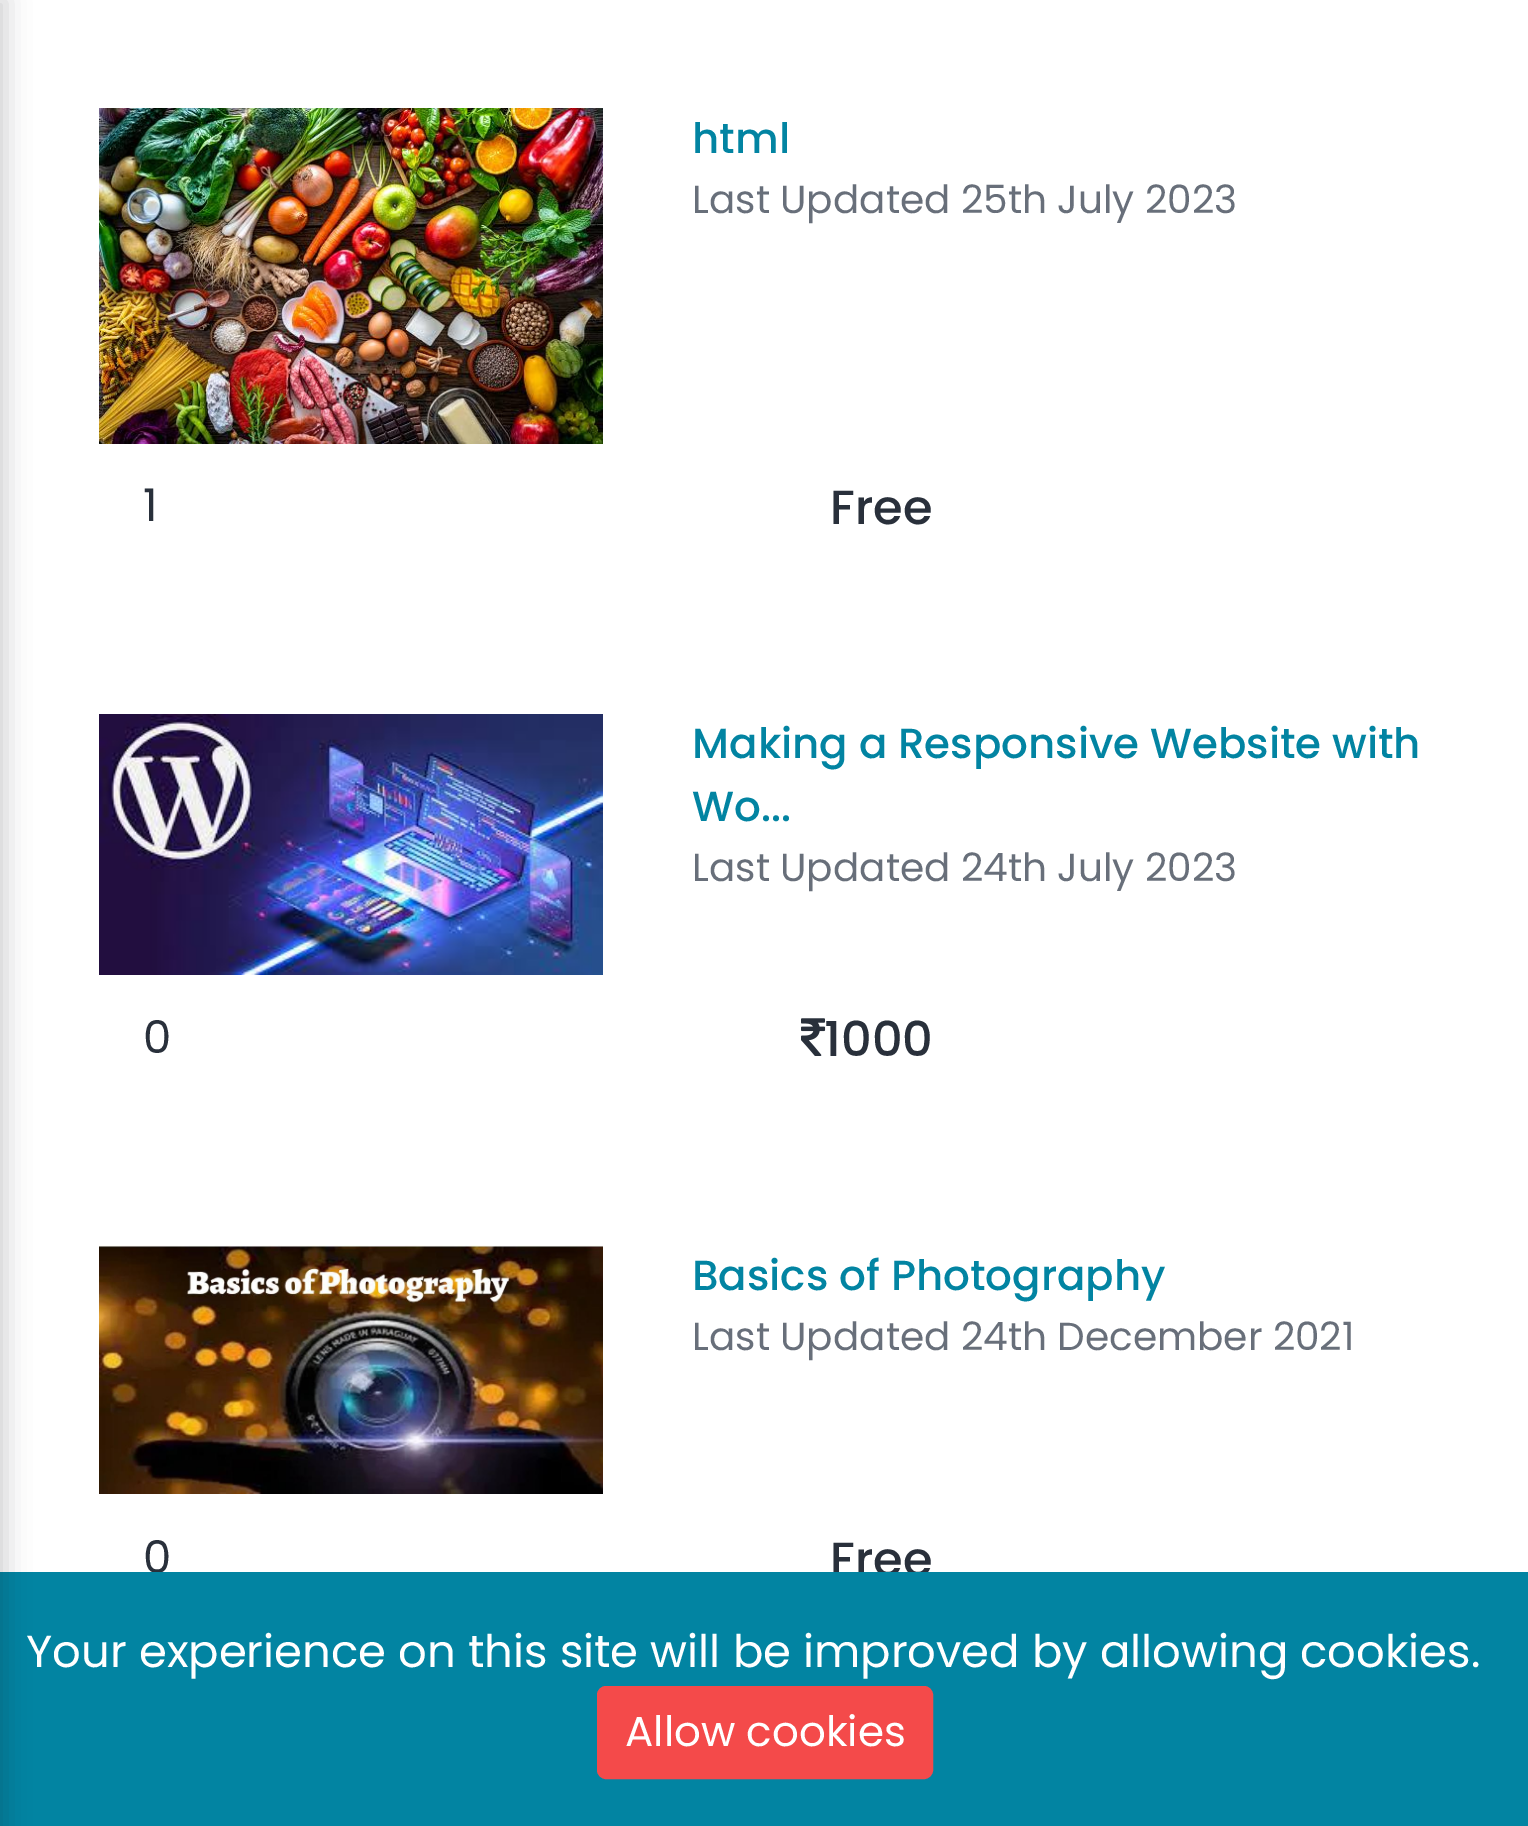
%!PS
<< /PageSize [1528 1826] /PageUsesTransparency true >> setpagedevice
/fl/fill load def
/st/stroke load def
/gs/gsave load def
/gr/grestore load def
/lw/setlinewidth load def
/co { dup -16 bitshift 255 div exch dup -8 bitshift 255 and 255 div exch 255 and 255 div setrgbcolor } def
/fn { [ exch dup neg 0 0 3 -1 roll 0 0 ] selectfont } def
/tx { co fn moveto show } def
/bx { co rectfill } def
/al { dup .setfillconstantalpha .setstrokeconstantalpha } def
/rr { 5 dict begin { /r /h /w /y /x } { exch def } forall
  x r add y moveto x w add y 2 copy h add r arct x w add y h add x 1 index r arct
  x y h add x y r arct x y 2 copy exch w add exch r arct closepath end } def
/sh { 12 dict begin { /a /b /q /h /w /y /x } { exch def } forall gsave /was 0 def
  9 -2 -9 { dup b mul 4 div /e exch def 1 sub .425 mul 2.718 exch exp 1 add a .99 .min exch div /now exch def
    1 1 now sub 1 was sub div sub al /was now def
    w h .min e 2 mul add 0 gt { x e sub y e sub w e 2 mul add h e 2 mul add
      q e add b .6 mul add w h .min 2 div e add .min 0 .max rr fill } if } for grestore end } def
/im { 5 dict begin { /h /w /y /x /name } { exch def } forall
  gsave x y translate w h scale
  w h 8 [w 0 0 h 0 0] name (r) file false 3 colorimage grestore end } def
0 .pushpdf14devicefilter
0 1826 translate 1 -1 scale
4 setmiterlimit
0 0 1528 1826 16#FFFFFF bx
(media/1.raw) 99 108 504 336 im
(media/2.raw) 99 714 504 261 im
(media/3.raw) 801 1018 25 38 im
(media/4.raw) 99 1245 504 249 im
(html) 692 153 /Poppins-Medium 42 16#0284A2 tx
(Last Updated 25th July 2023) 692 213 /Poppins-Regular 39 16#686F7A tx
(1) 143 521 /Poppins-Regular 45 16#29303B tx
(Free) 830 524 /Poppins-Medium 48 16#29303B tx
(Making a Responsive Website with) 692 758 /Poppins-Medium 42 16#0284A2 tx
(Wo...) 692 821 /Poppins-Medium 42 16#0284A2 tx
(Last Updated 24th July 2023) 692 881 /Poppins-Regular 39 16#686F7A tx
(0) 143 1053 /Poppins-Regular 45 16#29303B tx
(1000) 824 1056 /Poppins-Medium 48 16#29303B tx
(Basics of Photography) 692 1290 /Poppins-Medium 42 16#0284A2 tx
(Last Updated 24th December 2021) 692 1350 /Poppins-Regular 39 16#686F7A tx
(0) 143 1573 /Poppins-Regular 45 16#29303B tx
(Free) 830 1576 /Poppins-Medium 48 16#29303B tx
0 1572 1528 254 16#0284A2 bx
16#14171C co
-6 0 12 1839 0 12 .2 sh
(Your experience on this site will be improved by allowing cookies.) 26 1667 /Poppins-Regular 45 16#FFFFFF tx
16#F44A4A co
598.5 1687.5 333 90 7.5 rr gs fl gr
3 lw
st
(Allow cookies) 625 1746 /Poppins-Regular 42 16#FFFFFF tx
.poppdf14devicefilter showpage
